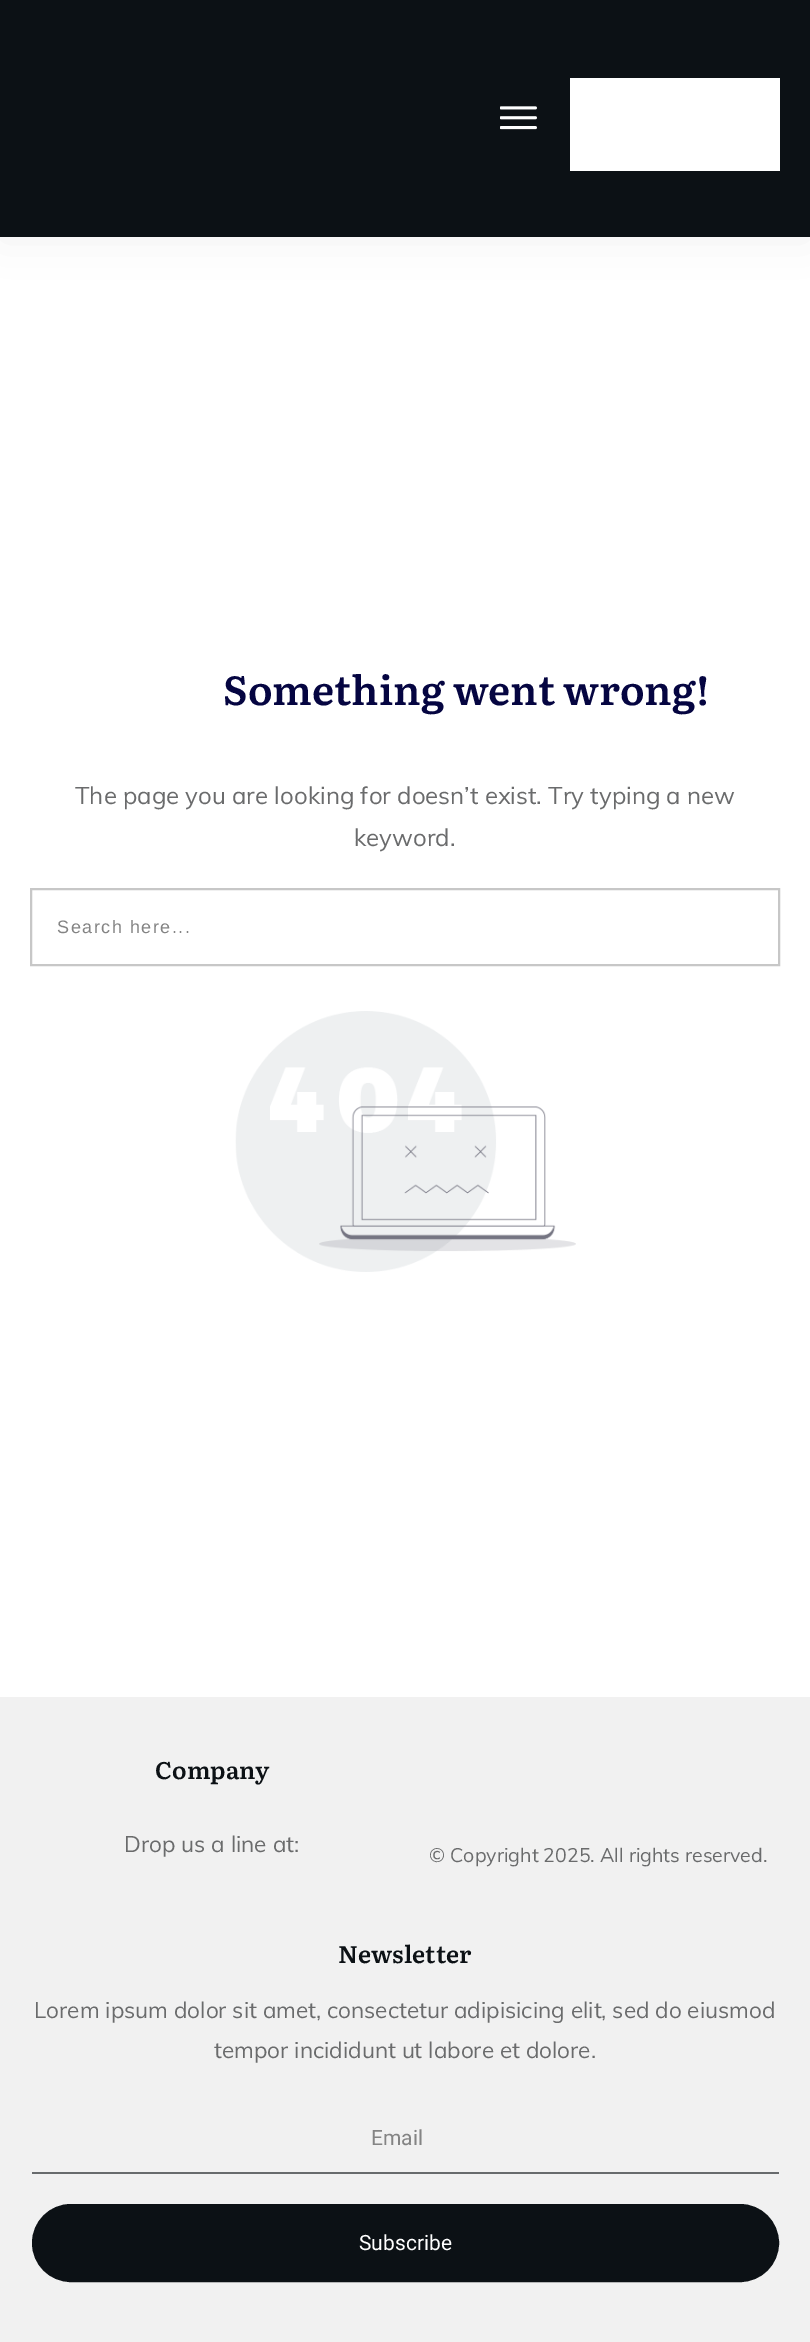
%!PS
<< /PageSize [810 2342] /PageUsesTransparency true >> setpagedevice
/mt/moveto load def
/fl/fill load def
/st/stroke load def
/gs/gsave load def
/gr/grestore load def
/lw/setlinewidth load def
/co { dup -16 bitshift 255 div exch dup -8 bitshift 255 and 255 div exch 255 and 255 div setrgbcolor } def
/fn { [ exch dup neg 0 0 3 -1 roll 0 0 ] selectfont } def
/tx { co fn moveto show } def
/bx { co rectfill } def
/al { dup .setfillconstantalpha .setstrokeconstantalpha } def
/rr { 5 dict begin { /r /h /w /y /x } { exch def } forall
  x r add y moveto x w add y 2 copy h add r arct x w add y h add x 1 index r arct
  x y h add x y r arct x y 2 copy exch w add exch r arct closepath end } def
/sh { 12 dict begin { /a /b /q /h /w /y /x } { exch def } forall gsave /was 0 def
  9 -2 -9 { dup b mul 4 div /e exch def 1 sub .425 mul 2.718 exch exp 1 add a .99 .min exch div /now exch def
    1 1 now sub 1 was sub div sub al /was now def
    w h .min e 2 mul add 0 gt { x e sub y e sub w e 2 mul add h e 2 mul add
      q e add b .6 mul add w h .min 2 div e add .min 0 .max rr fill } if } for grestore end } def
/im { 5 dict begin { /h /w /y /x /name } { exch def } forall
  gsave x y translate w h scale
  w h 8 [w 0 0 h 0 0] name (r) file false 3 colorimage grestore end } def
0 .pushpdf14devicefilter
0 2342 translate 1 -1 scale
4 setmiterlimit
0 0 810 2342 16#FFFFFF bx
16#000000 co
0 3 810 237 0 22.5 .05 sh
0 0 810 237 16#0C1115 bx
(media/1.raw) 500 106 37 24 im
570 78 210 93 16#FFFFFF bx
16#C7C7C7 co
2 lw
31 889 748 76 rectstroke
(media/2.raw) 235 1011 341 261 im
0 1697 810 645 16#F1F1F1 bx
32 2172 747 2 16#686B6D bx
16#0C1115 co
33 2205 745 76 38 rr gs fl gr
st
(Something went wrong!) 223 705 /Literata-SemiBold 40.5 16#050541 tx
(The page you are looking for doesn’t exist. Try typing a new) 75 804 /Muli-Regular 24 16#6A6B6C tx
(keyword.) 354 846 /Muli-Regular 24 16#6A6B6C tx
/LiberationSans-Regular 18 fn
16#848484 co
57 933 mt 1.5 0 (Search here...) ashow
(Company) 155 1779 /Literata-SemiBold 24 16#0C1115 tx
(Drop us a line at:) 124 1852 /Muli-Regular 22.5 16#6A6B6C tx
(© Copyright 2025. All rights reserved.) 429 1862 /Muli-Regular 19.5 16#6A6B6C tx
(Newsletter) 338 1963 /Literata-SemiBold 24 16#0C1115 tx
(Lorem ipsum dolor sit amet, consectetur adipisicing elit, sed do eiusmod) 34 2018 /Muli-Regular 22.5 16#6A6B6C tx
(tempor incididunt ut labore et dolore.) 214 2058 /Muli-Regular 22.5 16#6A6B6C tx
(Email) 371 2145 /Roboto-Regular 21 16#848484 tx
(Subscribe) 359 2250 /Roboto-Regular 21 16#FFFFFF tx
.poppdf14devicefilter showpage
